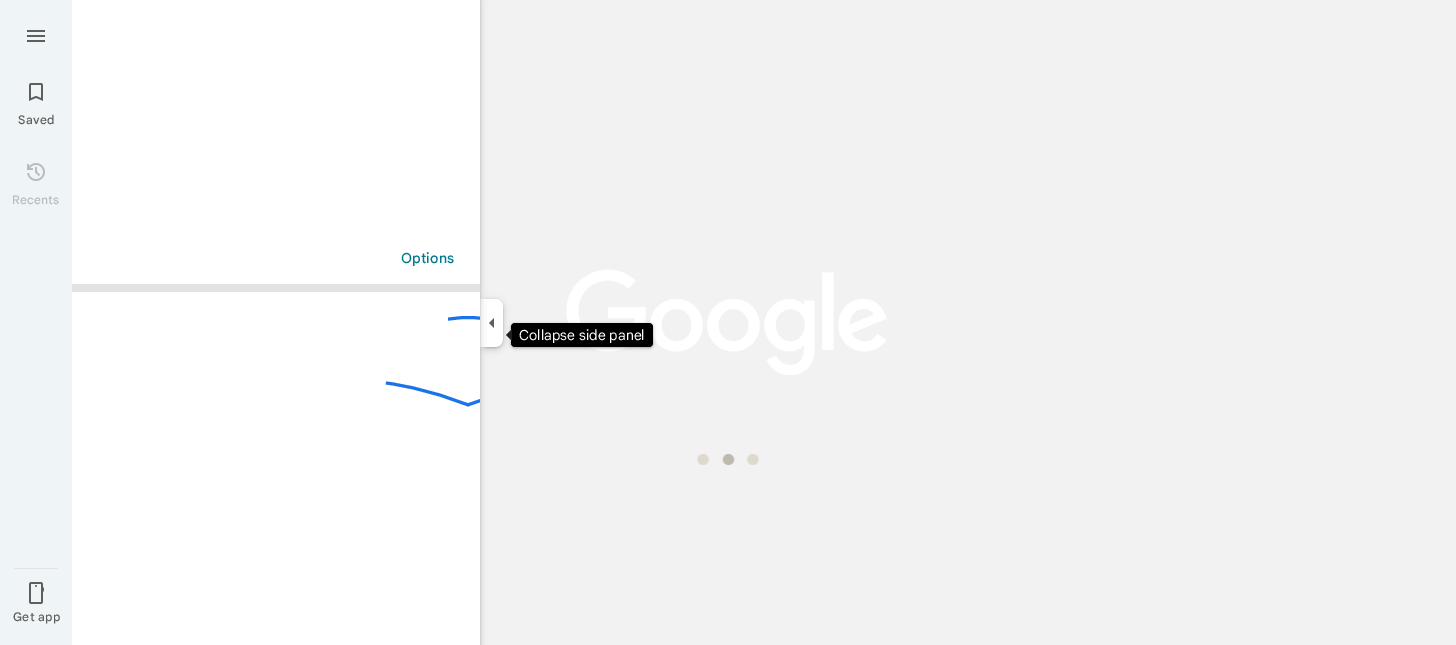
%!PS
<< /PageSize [1456 645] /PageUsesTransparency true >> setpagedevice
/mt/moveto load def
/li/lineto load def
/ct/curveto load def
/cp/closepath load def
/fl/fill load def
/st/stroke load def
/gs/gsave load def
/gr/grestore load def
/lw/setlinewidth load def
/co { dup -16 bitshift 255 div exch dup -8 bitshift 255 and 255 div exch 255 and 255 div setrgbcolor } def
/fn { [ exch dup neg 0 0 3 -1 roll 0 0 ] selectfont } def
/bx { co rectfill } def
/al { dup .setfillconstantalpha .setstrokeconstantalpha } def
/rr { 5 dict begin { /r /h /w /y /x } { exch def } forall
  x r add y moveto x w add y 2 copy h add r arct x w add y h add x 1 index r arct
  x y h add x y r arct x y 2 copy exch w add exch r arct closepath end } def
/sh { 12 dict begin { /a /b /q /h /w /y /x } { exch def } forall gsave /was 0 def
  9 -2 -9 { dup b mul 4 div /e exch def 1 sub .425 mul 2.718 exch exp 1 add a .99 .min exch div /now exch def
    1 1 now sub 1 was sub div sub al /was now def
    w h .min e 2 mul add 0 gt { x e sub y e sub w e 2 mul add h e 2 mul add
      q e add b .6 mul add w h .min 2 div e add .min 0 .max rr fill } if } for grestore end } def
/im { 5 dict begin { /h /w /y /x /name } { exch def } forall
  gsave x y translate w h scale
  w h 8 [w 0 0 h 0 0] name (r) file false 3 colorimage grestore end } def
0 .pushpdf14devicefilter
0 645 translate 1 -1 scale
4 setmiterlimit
0 0 1456 645 16#F2F2F2 bx
16#3C4043 co
478 299 27 52 10 3 .15 sh
480 300 23 48 8 1 .3 sh
16#FFFFFF co
480 299 mt 495 299 li 499.5 299 503 302.5 503 307 ct 503 339 li 503 343.5 499.5 347 495 347 ct 480 347 li cp fl
16#5E5E5E co
494 328 mt 489 323 li 494 318 li cp fl
16#3C4043 co
70 0 412 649 0 3 .15 sh
72 1 408 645 0 1 .3 sh
0 0 72 645 16#EFF5F6 bx
(media/1.raw) 27 30 18 12 im
(media/2.raw) 29 83 14 18 im
(media/3.raw) 27 163 18 18 im
14 568 44 1 16#E3E3E3 bx
(media/4.raw) 29 582 15 22 im
72 0 408 645 16#FFFFFF bx
72 284 408 8 16#E3E3E3 bx
gs
448 316 32 329 rectclip
16#1A73E8 co
3 lw
325 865.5 mt 287 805.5 265.5 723.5 265.5 638.5 ct 265.5 553.5 287 471.5 325 411.5 ct 363 351.5 414.5 317.5 468 317.5 ct 521.5 317.5 573 351.5 611 411.5 ct 649 471.5 670.5 553.5 670.5 638.5 ct 670.5 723.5 649 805.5 611 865.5 ct st
gr
gs
264 316 204 329 rectclip
16#1A73E8 co
3 lw
386 383 mt 456.5 392.5 533 428.5 598 483.5 ct 663.5 538 712 607 734 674.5 ct 755.5 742.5 748.5 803.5 714 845 ct 679.5 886 620.5 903.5 550 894 ct st
gr
gs
468 316 12 329 rectclip
16#1A73E8 co
3 lw
386 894 mt 315.5 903.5 256.5 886 222 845 ct 187.5 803.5 180.5 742.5 202 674.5 ct 224 607 272.5 538 338 483.5 ct 403 428.5 479.5 392.5 550 383 ct st
gr
(media/5.raw) 566 269 321 106 im
16#3C4043 co
510 323 144 26 5 1.5 .15 sh
511 324 142 24 4 1 .3 sh
16#000000 co
511 323 142 24 4 rr fl
16#1F1F1F co
512 329 mt 512 341 li 506 335 li cp fl
(media/6.raw) 697 454 62 11 im
/GoogleSans-Medium 12 fn
16#5E5E5E co
18 124 mt .25 0 (Saved) ashow
16#B8BCBC co
12 204 mt .25 0 (Recents) ashow
16#5E5E5E co
13 621 mt .25 0 (Get app) ashow
/GoogleSans-Medium 14 fn
16#007B8B co
401 263 mt .1 0 (Options) ashow
/GoogleSans-Regular 14 fn
16#FFFFFF co
519 340 mt .1 0 (Collapse side panel) ashow
.poppdf14devicefilter showpage
